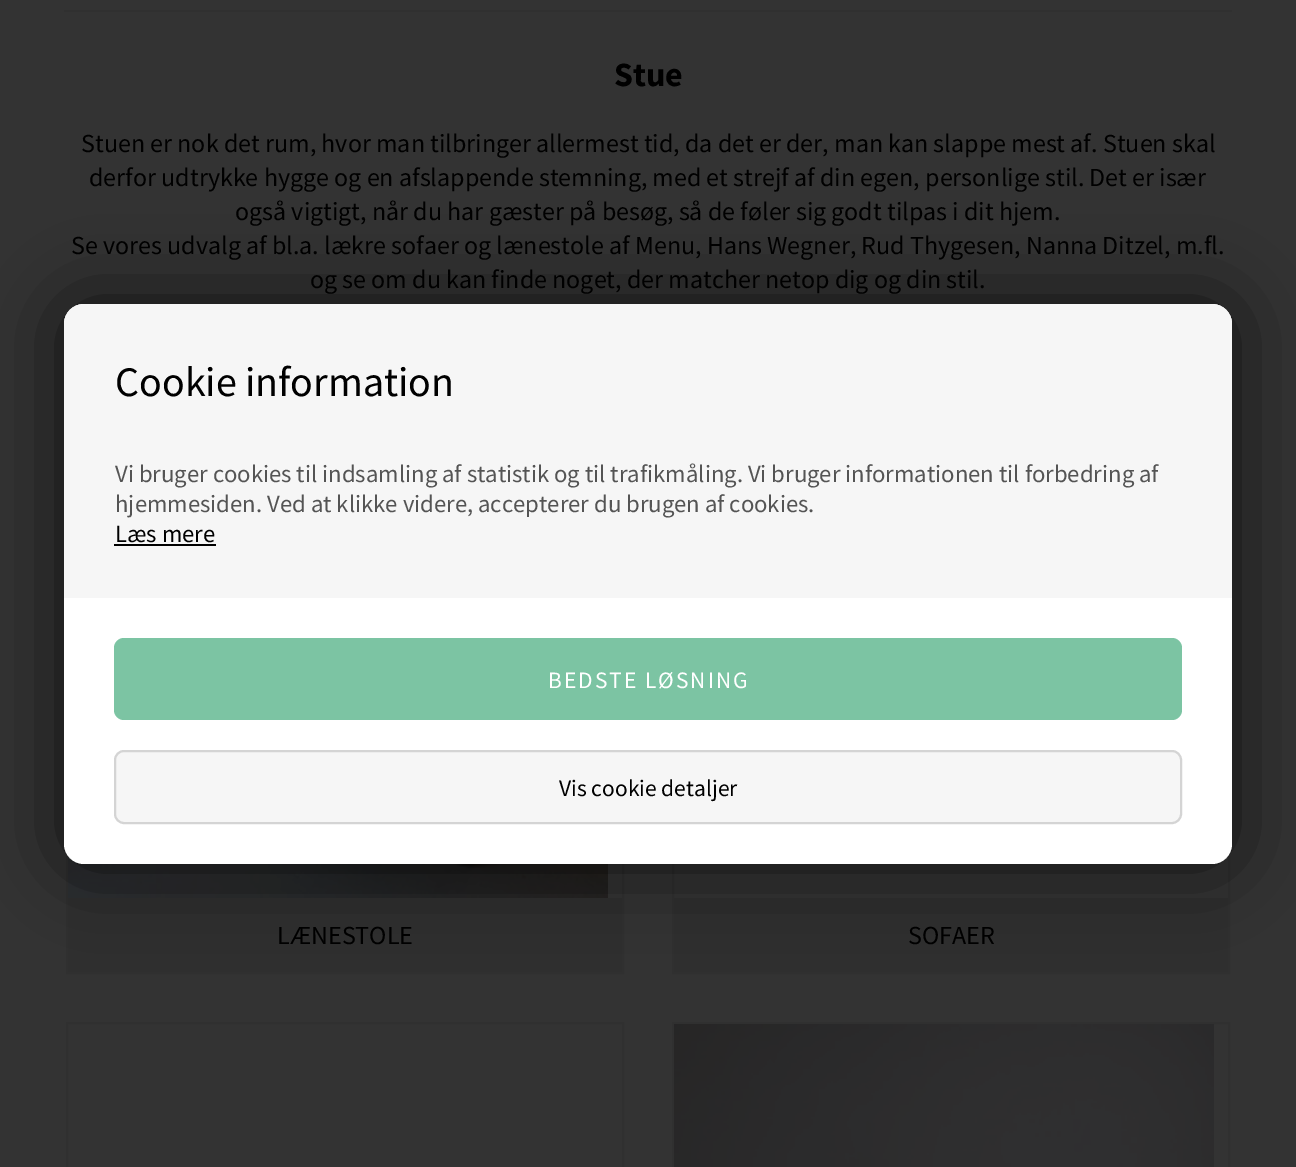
%!PS
<< /PageSize [1296 1167] /PageUsesTransparency true >> setpagedevice
/mt/moveto load def
/li/lineto load def
/ct/curveto load def
/cp/closepath load def
/fl/fill load def
/st/stroke load def
/gs/gsave load def
/gr/grestore load def
/lw/setlinewidth load def
/co { dup -16 bitshift 255 div exch dup -8 bitshift 255 and 255 div exch 255 and 255 div setrgbcolor } def
/fn { [ exch dup neg 0 0 3 -1 roll 0 0 ] selectfont } def
/tx { co fn moveto show } def
/bx { co rectfill } def
/al { dup .setfillconstantalpha .setstrokeconstantalpha } def
/rr { 5 dict begin { /r /h /w /y /x } { exch def } forall
  x r add y moveto x w add y 2 copy h add r arct x w add y h add x 1 index r arct
  x y h add x y r arct x y 2 copy exch w add exch r arct closepath end } def
/sh { 12 dict begin { /a /b /q /h /w /y /x } { exch def } forall gsave /was 0 def
  9 -2 -9 { dup b mul 4 div /e exch def 1 sub .425 mul 2.718 exch exp 1 add a .99 .min exch div /now exch def
    1 1 now sub 1 was sub div sub al /was now def
    w h .min e 2 mul add 0 gt { x e sub y e sub w e 2 mul add h e 2 mul add
      q e add b .6 mul add w h .min 2 div e add .min 0 .max rr fill } if } for grestore end } def
/im { 5 dict begin { /h /w /y /x /name } { exch def } forall
  gsave x y translate w h scale
  w h 8 [w 0 0 h 0 0] name (r) file false 3 colorimage grestore end } def
0 .pushpdf14devicefilter
0 1167 translate 1 -1 scale
4 setmiterlimit
0 0 1296 1167 16#333333 bx
64 10 1168 2 16#303030 bx
2 lw
67 357 556 616 rectstroke
(media/1.raw) 68 856 540 42 im
68 898 554 74 16#2F2F2F bx
16#303030 co
673 357 556 616 rectstroke
674 898 554 74 16#2F2F2F bx
16#303030 co
67 1023 556 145 rectstroke
673 1023 556 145 rectstroke
(media/2.raw) 674 1024 540 143 im
16#000000 co
64 304 1168 560 20 40 .7 sh
16#FFFFFF co
64 304 1168 560 20 rr fl
16#F6F6F6 co
84 304 mt 1212 304 li 1223 304 1232 313 1232 324 ct 1232 458 li 64 458 li 64 324 li 64 313 73 304 84 304 ct cp fl
64 458 1168 140 16#F6F6F6 bx
114 544 102 2 16#000000 bx
16#7CC4A3 co
114 638 1068 82 10 rr fl
16#F6F6F6 co
115 751 1066 72 9 rr gs fl gr
16#D4D4D4 co
st
(Stue) 614 86 /SourceSansPro-Bold 34 16#000000 tx
(Stuen er nok det rum, hvor man tilbringer allermest tid, da det er der, man kan slappe mest af. Stuen skal) 81 152 /SourceSansPro-Regular 26 16#000000 tx
(derfor udtrykke hygge og en afslappende stemning, med et strejf af din egen, personlige stil. Det er især) 89 186 /SourceSansPro-Regular 26 16#000000 tx
(også vigtigt, når du har gæster på besøg, så de føler sig godt tilpas i dit hjem.) 235 220 /SourceSansPro-Regular 26 16#000000 tx
(Se vores udvalg af bl.a. lækre sofaer og lænestole af Menu, Hans Wegner, Rud Thygesen, Nanna Ditzel, m.fl.) 71 254 /SourceSansPro-Regular 26 16#000000 tx
(og se om du kan finde noget, der matcher netop dig og din stil.) 310 288 /SourceSansPro-Regular 26 16#000000 tx
(LÆNESTOLE) 277 944 /SourceSansPro-Regular 26 16#000000 tx
(SOFAER) 908 944 /SourceSansPro-Regular 26 16#000000 tx
(Cookie information) 115 396 /SourceSansPro-Regular 42 16#000000 tx
(Vi bruger cookies til indsamling af statistik og til trafikmåling. Vi bruger informationen til forbedring af) 115 482 /SourceSansPro-Regular 24.7 16#545454 tx
(hjemmesiden. Ved at klikke videre, accepterer du brugen af cookies.) 115 512 /SourceSansPro-Regular 24.7 16#545454 tx
(Læs mere) 115 542 /SourceSansPro-Regular 24.7 16#000000 tx
/SourceSansPro-Regular 23.5 fn
16#FFFFFF co
548 688 mt 2 0 (BEDSTE LØSNING) ashow
(Vis cookie detaljer) 559 796 /SourceSansPro-Regular 23.5 16#000000 tx
.poppdf14devicefilter showpage
